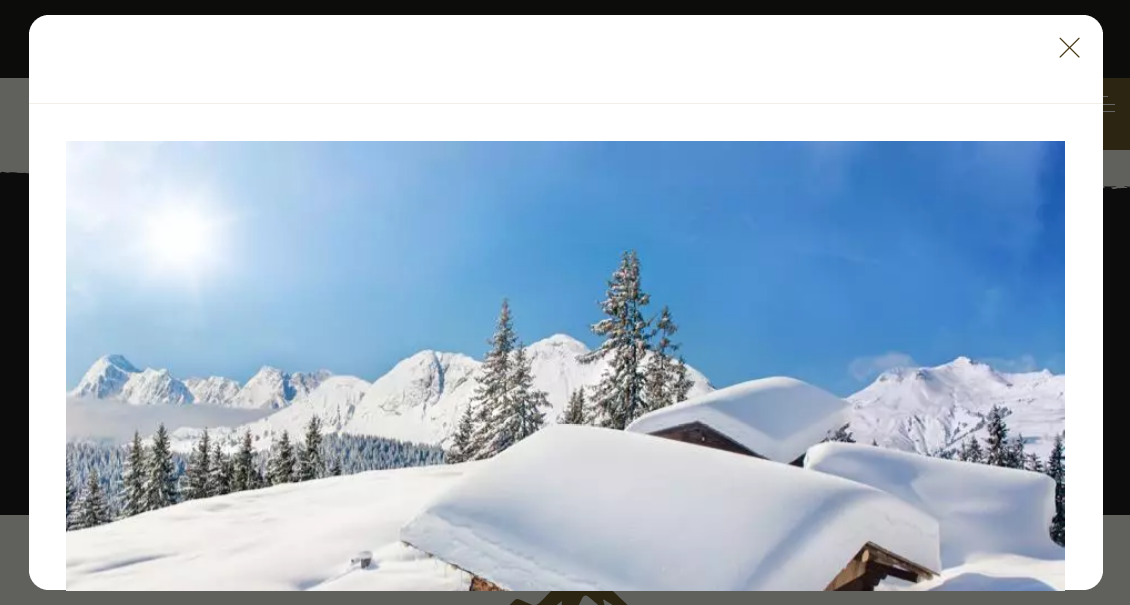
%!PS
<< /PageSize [1130 605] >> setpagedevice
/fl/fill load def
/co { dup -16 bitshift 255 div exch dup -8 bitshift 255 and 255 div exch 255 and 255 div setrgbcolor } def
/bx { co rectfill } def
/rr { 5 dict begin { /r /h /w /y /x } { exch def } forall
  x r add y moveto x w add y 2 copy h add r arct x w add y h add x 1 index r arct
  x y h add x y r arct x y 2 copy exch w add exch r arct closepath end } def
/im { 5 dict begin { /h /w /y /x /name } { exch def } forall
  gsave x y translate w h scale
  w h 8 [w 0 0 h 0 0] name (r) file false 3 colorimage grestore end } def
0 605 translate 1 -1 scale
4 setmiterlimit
0 0 1130 605 16#60605D bx
0 0 1130 78 16#0C0C0B bx
1103 78 27 72 16#2C2512 bx
1103 96 5 1 16#666666 bx
1103 104 12 1 16#666666 bx
1103 111 12 1 16#666666 bx
0 171 1130 344 16#0C0C0C bx
(media/1.raw) 0 163 1130 26 im
(media/2.raw) 509 591 119 14 im
16#FFFFFF co
29 15 1074 575 20 rr fl
29 103 1074 1 16#F1EFE8 bx
(media/3.raw) 1059 37 21 21 im
(media/4.raw) 66 141 999 450 im
showpage
